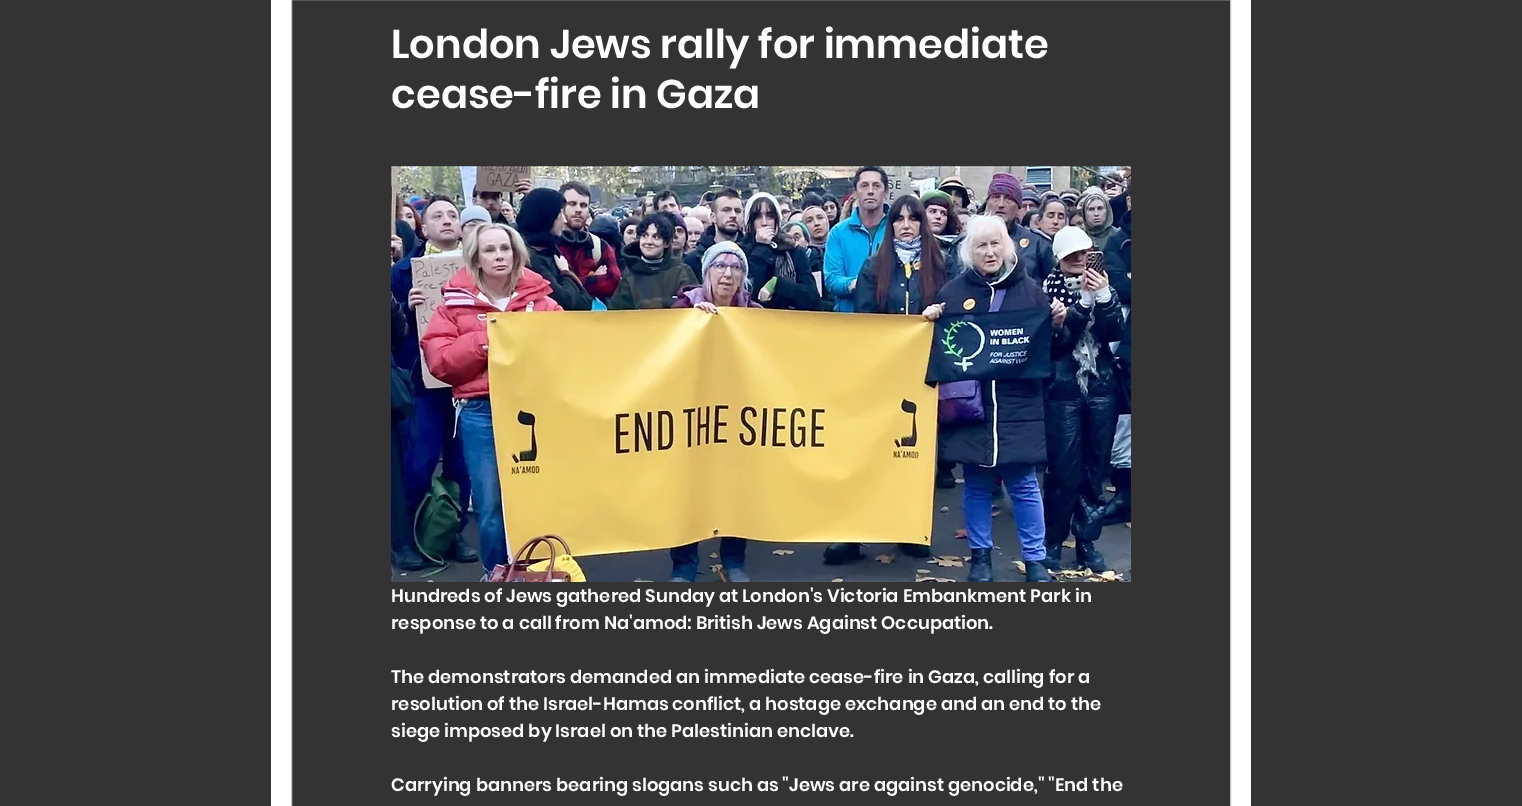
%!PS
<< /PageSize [1522 806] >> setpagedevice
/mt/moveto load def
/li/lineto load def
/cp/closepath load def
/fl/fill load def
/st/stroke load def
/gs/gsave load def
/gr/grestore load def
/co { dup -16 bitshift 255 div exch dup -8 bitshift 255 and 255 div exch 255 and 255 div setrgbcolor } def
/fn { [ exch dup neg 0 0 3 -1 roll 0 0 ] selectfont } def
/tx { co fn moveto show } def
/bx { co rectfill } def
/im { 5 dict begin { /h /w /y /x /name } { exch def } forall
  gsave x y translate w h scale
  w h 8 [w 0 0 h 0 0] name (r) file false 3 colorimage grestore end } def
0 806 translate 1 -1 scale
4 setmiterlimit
0 0 1522 806 16#333333 bx
271 0 980 806 16#FFFFFF bx
16#333333 co
291.5 -.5 mt 1230.5 -.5 li 1230.5 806.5 li 291.5 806.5 li cp gs fl gr
16#C2C2C2 co
st
(media/1.raw) 391 166 740 416 im
(London Jews rally for immediate) 391 58 /Poppins-SemiBold 40 16#FFFFFF tx
(cease-fire in Gaza) 391 108 /Poppins-SemiBold 40 16#FFFFFF tx
(Hundreds of Jews gathered Sunday at London's Victoria Embankment Park in) 391 602 /Poppins-SemiBold 18 16#FFFFFF tx
(response to a call from Na'amod: British Jews Against Occupation.) 391 629 /Poppins-SemiBold 18 16#FFFFFF tx
(The demonstrators demanded an immediate cease-fire in Gaza, calling for a) 391 683 /Poppins-SemiBold 18 16#FFFFFF tx
(resolution of the Israel-Hamas conflict, a hostage exchange and an end to the) 391 710 /Poppins-SemiBold 18 16#FFFFFF tx
(siege imposed by Israel on the Palestinian enclave.) 391 737 /Poppins-SemiBold 18 16#FFFFFF tx
(Carrying banners bearing slogans such as "Jews are against genocide," "End the) 391 791 /Poppins-SemiBold 18 16#FFFFFF tx
showpage
